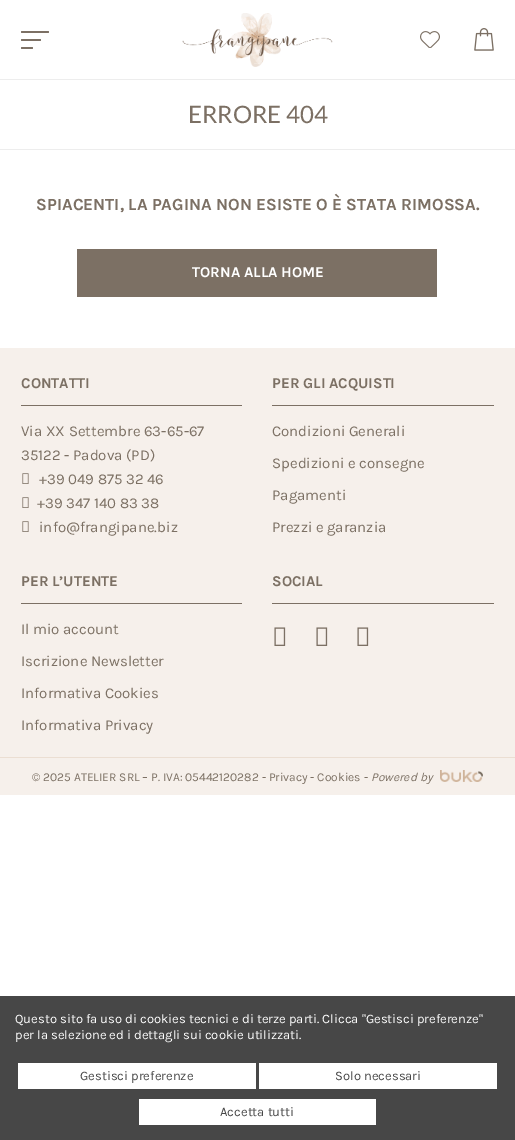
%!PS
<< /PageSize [515 1140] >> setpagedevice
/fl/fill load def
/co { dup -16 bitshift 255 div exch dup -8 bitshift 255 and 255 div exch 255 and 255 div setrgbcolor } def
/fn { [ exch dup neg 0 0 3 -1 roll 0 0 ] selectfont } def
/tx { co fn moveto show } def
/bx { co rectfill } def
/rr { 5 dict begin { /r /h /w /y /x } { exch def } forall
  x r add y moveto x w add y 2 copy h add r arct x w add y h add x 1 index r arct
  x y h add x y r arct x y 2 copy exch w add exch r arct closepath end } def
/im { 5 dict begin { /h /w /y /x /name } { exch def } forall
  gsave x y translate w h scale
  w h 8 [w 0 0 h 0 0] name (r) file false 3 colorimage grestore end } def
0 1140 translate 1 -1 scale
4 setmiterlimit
0 0 515 1140 16#FFFFFF bx
0 79 515 1 16#EDEDED bx
16#7C7064 co
21 31 28 2 1 rr fl
21 39 20 2 1 rr fl
21 47 12 2 1 rr fl
(media/1.raw) 182 13 151 54 im
(media/2.raw) 420 31 20 17 im
(media/3.raw) 474 28 20 23 im
0 149 515 1 16#EDEDED bx
77 249 360 48 16#7C7064 bx
0 348 515 447 16#F6F0EB bx
21 405 221 1 16#7C7064 bx
(media/4.raw) 22 473 7 11 im
(media/4.raw) 22 497 7 11 im
(media/4.raw) 22 521 7 11 im
272 405 222 1 16#7C7064 bx
21 603 221 1 16#7C7064 bx
272 603 222 1 16#7C7064 bx
(media/5.raw) 274 627 12 19 im
(media/5.raw) 316 627 12 19 im
(media/5.raw) 357 627 12 19 im
0 757 515 1 16#EBDED2 bx
(media/6.raw) 440 770 43 12 im
0 996 515 144 16#474747 bx
18 1063 238 26 16#FFFFFF bx
259 1063 238 26 16#FFFFFF bx
139 1099 237 26 16#FFFFFF bx
(ERRORE 404) 188 123 /Lato-Regular 24 16#7C7064 tx
(SPIACENTI, LA PAGINA NON ESISTE O È STATA RIMOSSA.) 36 210 /Karla-Bold 17 16#7C7064 tx
(TORNA ALLA HOME) 192 277 /Karla-Bold 15 16#FFFFFF tx
(CONTATTI) 21 388 /Karla-Bold 15 16#7C7064 tx
(Via XX Settembre 63-65-67) 21 436 /Karla-Regular 15 16#7C7064 tx
(35122 - Padova \(PD\)) 21 460 /Karla-Regular 15 16#7C7064 tx
(+39 049 875 32 46) 39 484 /Karla-Regular 15 16#7C7064 tx
(+39 347 140 83 38) 37 508 /Karla-Regular 15 16#7C7064 tx
(info@frangipane.biz) 39 532 /Karla-Regular 15 16#7C7064 tx
(PER GLI ACQUISTI) 272 388 /Karla-Bold 15 16#7C7064 tx
(Condizioni Generali) 272 436 /Karla-Regular 15 16#7C7064 tx
(Spedizioni e consegne) 272 468 /Karla-Regular 15 16#7C7064 tx
(Pagamenti) 272 500 /Karla-Regular 15 16#7C7064 tx
(Prezzi e garanzia) 272 532 /Karla-Regular 15 16#7C7064 tx
(PER L’UTENTE) 21 586 /Karla-Bold 15 16#7C7064 tx
(Il mio account) 21 634 /Karla-Regular 15 16#7C7064 tx
(Iscrizione Newsletter) 21 666 /Karla-Regular 15 16#7C7064 tx
(Informativa Cookies) 21 698 /Karla-Regular 15 16#7C7064 tx
(Informativa Privacy) 21 730 /Karla-Regular 15 16#7C7064 tx
(SOCIAL) 272 586 /Karla-Bold 15 16#7C7064 tx
(© 2025 ATELIER SRL – P. IVA: 05442120282 - Privacy - Cookies -) 32 781 /Karla-Regular 12 16#7C7064 tx
(Powered by) 371 781 /Karla-Italic 12 16#7C7064 tx
(Questo sito fa uso di cookies tecnici e di terze parti. Clicca "Gestisci preferenze") 15 1023 /Karla-Regular 13 16#FFFFFF tx
(per la selezione ed i dettagli sui cookie utilizzati.) 15 1039 /Karla-Regular 13 16#FFFFFF tx
(Gestisci preferenze) 80 1080 /Karla-Regular 13 16#474747 tx
(Solo necessari) 335 1080 /Karla-Regular 13 16#474747 tx
(Accetta tutti) 220 1116 /Karla-Regular 13 16#474747 tx
showpage
